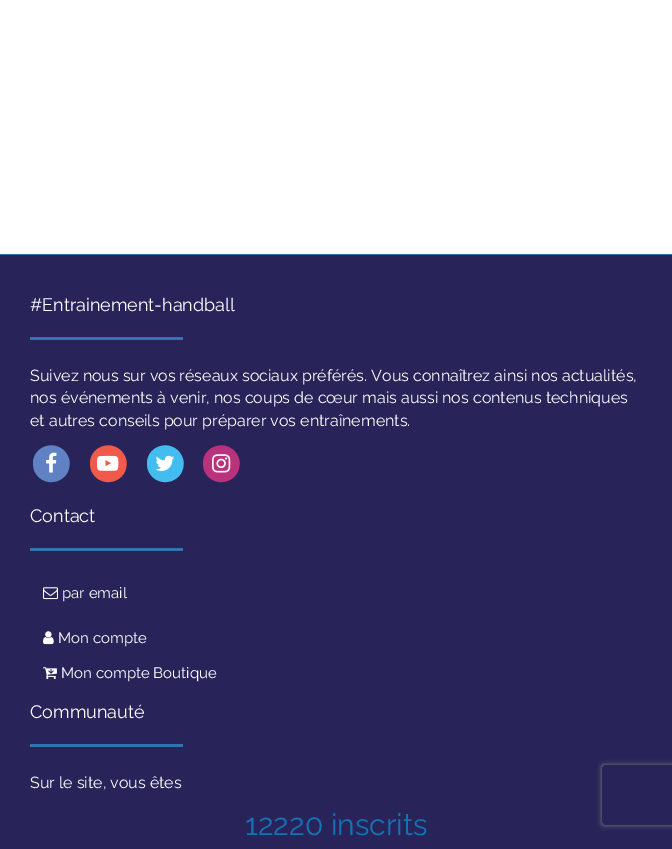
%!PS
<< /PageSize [672 849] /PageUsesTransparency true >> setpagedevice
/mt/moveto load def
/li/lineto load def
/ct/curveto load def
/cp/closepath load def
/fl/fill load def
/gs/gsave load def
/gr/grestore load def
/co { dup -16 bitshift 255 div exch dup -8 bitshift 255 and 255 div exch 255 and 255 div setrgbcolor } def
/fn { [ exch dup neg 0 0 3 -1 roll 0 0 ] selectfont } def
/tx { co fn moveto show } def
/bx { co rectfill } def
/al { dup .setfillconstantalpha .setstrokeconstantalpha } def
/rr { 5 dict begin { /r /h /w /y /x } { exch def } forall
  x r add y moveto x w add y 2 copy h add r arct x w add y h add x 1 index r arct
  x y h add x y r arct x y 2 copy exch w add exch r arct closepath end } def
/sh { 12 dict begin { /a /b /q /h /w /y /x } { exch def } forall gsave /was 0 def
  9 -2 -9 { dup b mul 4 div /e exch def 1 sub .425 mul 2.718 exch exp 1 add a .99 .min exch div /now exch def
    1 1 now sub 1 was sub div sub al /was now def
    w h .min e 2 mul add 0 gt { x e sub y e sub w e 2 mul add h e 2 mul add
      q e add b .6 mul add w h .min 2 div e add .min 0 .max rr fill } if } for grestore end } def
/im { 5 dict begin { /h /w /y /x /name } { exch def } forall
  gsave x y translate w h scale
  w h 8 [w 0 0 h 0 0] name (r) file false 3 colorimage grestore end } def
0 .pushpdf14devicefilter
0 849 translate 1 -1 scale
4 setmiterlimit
0 0 672 849 16#FFFFFF bx
0 255 672 594 16#282459 bx
0 254 672 1 16#3473B3 bx
30 337 153 3 16#3473B3 bx
16#6081C4 co
67 454.5 mt 69 457.5 70 461.5 69.5 465 ct 68.5 483 44.5 488.5 35.5 473 ct 33.5 470 33 466 33 462.5 ct 34 444.5 58 439 67 454.5 ct cp fl
(media/1.raw) 46 452 11 21 im
16#F15A4B co
124 454.5 mt 126 457.5 127 461.5 126.5 465 ct 125.5 483 101.5 488.5 92.5 473 ct 90.5 470 90 466 90 462.5 ct 91 444.5 115 439 124 454.5 ct cp fl
(media/2.raw) 97 455 22 16 im
16#43BDEF co
181 454.5 mt 183 457.5 184 461.5 183.5 465 ct 182.5 483 158.5 488.5 149.5 473 ct 147.5 470 147 466 147 462.5 ct 148 444.5 172 439 181 454.5 ct cp fl
(media/3.raw) 155 455 20 16 im
16#B9327B co
237 454.5 mt 239 457.5 240 461.5 239.5 465 ct 238.5 483 214.5 488.5 205.5 473 ct 203.5 470 203 466 203 462.5 ct 204 444.5 228 439 237 454.5 ct cp fl
(media/4.raw) 212 454 19 19 im
30 548 153 3 16#3473B3 bx
(media/5.raw) 43 587 15 13 im
(media/6.raw) 43 631 11 14 im
(media/7.raw) 43 667 14 13 im
30 744 153 3 16#3473B3 bx
gs
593 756 mt 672 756 li 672 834 li 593 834 li cp 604 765 mt 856 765 li 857 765 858 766 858 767 ct 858 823 li 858 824 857 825 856 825 ct 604 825 li 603 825 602 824 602 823 ct 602 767 li 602 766 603 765 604 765 ct cp eoclip newpath
16#808080 co
602 765 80 60 2 2.5 1 sh
gr
(#Entrainement-handball) 30 311 /Raleway-Regular 18 16#FFFFFF tx
(Suivez nous sur vos réseaux sociaux préférés. Vous connaîtrez ainsi nos actualités,) 30 381 /Raleway-Regular 16 16#FFFFFF tx
(nos événements à venir, nos coups de cœur mais aussi nos contenus techniques) 30 403 /Raleway-Regular 16 16#FFFFFF tx
(et autres conseils pour préparer vos entraînements.) 30 426 /Raleway-Regular 16 16#FFFFFF tx
(Contact) 30 522 /Raleway-Regular 18 16#FFFFFF tx
(par email) 62 598 /Raleway-Regular 15 16#FFFFFF tx
(Mon compte) 58 643 /Raleway-Regular 15 16#FFFFFF tx
(Mon compte Boutique) 61 678 /Raleway-Regular 15 16#FFFFFF tx
(Communauté) 30 718 /Raleway-Regular 18 16#FFFFFF tx
(Sur le site, vous êtes) 30 788 /Raleway-Regular 16 16#FFFFFF tx
(12220 inscrits) 245 835 /Raleway-Regular 30 16#1273B6 tx
.poppdf14devicefilter showpage
